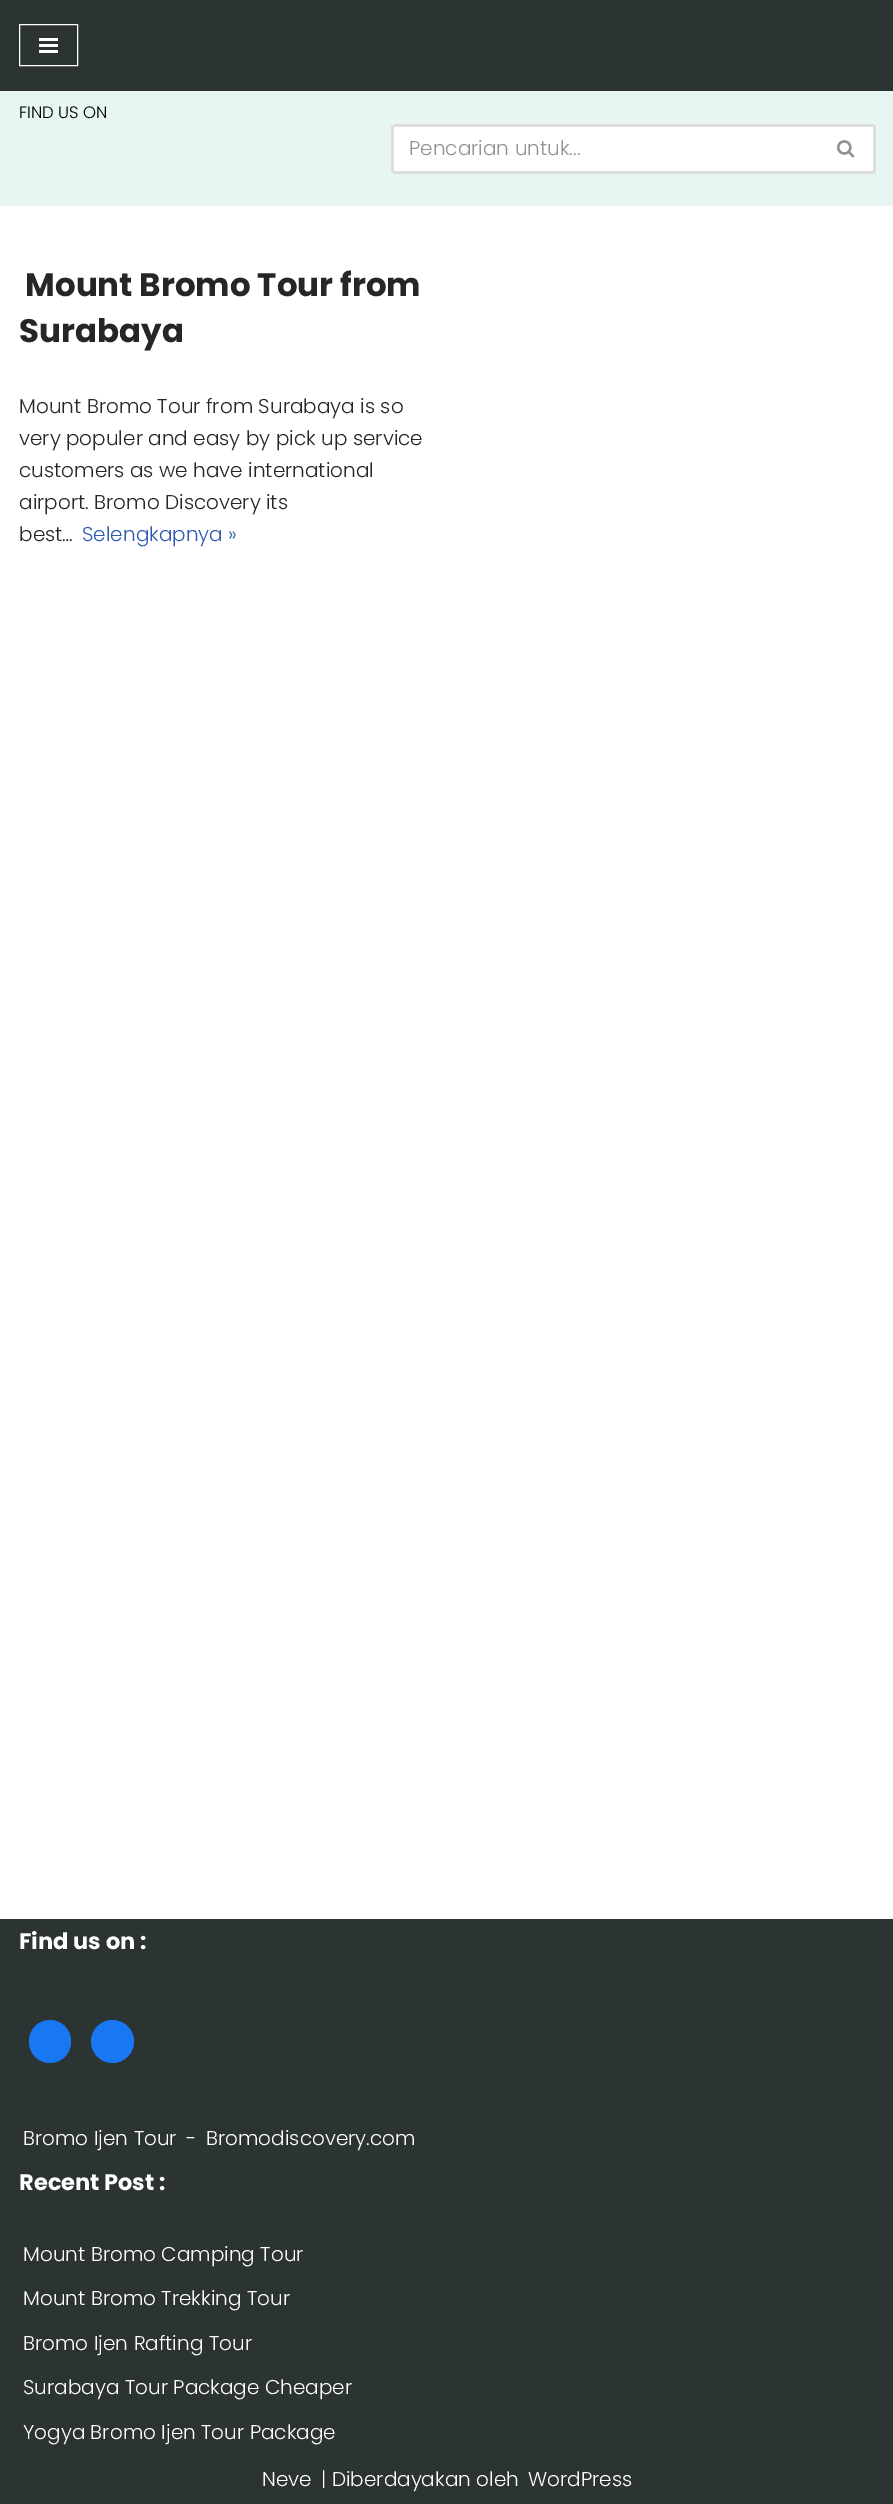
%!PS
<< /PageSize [893 2504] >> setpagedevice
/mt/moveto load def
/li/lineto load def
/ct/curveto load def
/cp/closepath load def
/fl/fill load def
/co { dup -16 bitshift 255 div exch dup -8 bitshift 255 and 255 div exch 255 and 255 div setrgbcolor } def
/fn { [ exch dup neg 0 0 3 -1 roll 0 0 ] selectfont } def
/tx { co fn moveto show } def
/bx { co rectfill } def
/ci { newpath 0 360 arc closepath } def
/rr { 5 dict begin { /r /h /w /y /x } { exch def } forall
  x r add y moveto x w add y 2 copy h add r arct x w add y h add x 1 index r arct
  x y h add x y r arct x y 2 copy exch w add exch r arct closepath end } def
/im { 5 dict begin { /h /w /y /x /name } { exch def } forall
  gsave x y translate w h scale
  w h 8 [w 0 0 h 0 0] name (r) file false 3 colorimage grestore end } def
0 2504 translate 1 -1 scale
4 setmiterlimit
0 0 893 2504 16#FFFFFF bx
0 0 893 91 16#2C3333 bx
16#FEFEFE co
19.5 24.5 58 41 rectstroke
39 38 19 3 16#FEFEFE bx
39 44 19 3 16#FEFEFE bx
39 50 19 3 16#FEFEFE bx
0 91 893 115 16#E7F6F2 bx
16#FFFFFF co
393.5 124 mt 819 124 li 819 174 li 393.5 174 li 392 174 391 173 391 171.5 ct 391 126.5 li 391 125 392 124 393.5 124 ct cp fl
393 124 426 3 16#DDDDDD bx
393 171 426 3 16#DDDDDD bx
391 125 3 48 16#DDDDDD bx
16#FFFFFF co
819 124 mt 872.5 124 li 874 124 875 125 875 126.5 ct 875 171.5 li 875 173 874 174 872.5 174 ct 819 174 li cp fl
819 124 55 3 16#DDDDDD bx
873 125 3 48 16#DDDDDD bx
819 171 55 3 16#DDDDDD bx
(media/1.raw) 836 140 19 18 im
0 1919 893 585 16#2C3333 bx
16#1877F2 co
29 2020 42 43 21 rr fl
112.5 2041.5 21.5 ci fl
(FIND US ON) 19 118 /Poppins-Light 16.5 16#000000 tx
(Pencarian untuk...) 409 155 /Poppins-Light 20 16#939393 tx
(Mount Bromo Tour from) 25 296 /Poppins-Bold 32.5 16#272626 tx
(Surabaya) 19 342 /Poppins-Bold 32.5 16#272626 tx
(Mount Bromo Tour from Surabaya is so) 19 413 /Poppins-Light 20 16#272626 tx
(very populer and easy by pick up service) 19 445 /Poppins-Light 20 16#272626 tx
(customers as we have international) 19 477 /Poppins-Light 20 16#272626 tx
(airport. Bromo Discovery its) 19 509 /Poppins-Light 20 16#272626 tx
(best…) 19 541 /Poppins-Light 20 16#272626 tx
(Selengkapnya ») 82 541 /Poppins-Light 20 16#2F5AAE tx
(Find us on :) 19 1949 /Poppins-Bold 22.5 16#FFFFFF tx
(Bromo Ijen Tour) 23 2145 /Poppins-Light 20 16#FFFFFF tx
(-) 186 2145 /Poppins-Light 20 16#FFFFFF tx
(Bromodiscovery.com) 206 2145 /Poppins-Light 20 16#FFFFFF tx
(Recent Post :) 19 2190 /Poppins-Bold 22.5 16#FFFFFF tx
(Mount Bromo Camping Tour) 23 2261 /Poppins-Light 20 16#FFFFFF tx
(Mount Bromo Trekking Tour) 23 2305 /Poppins-Light 20 16#FFFFFF tx
(Bromo Ijen Rafting Tour) 23 2350 /Poppins-Light 20 16#FFFFFF tx
(Surabaya Tour Package Cheaper) 23 2394 /Poppins-Light 20 16#FFFFFF tx
(Yogya Bromo Ijen Tour Package) 23 2439 /Poppins-Light 20 16#FFFFFF tx
(Neve) 262 2486 /Poppins-Light 20 16#FFFFFF tx
(| Diberdayakan oleh) 321 2486 /Poppins-Light 20 16#FFFFFF tx
(WordPress) 528 2486 /Poppins-Light 20 16#FFFFFF tx
showpage
